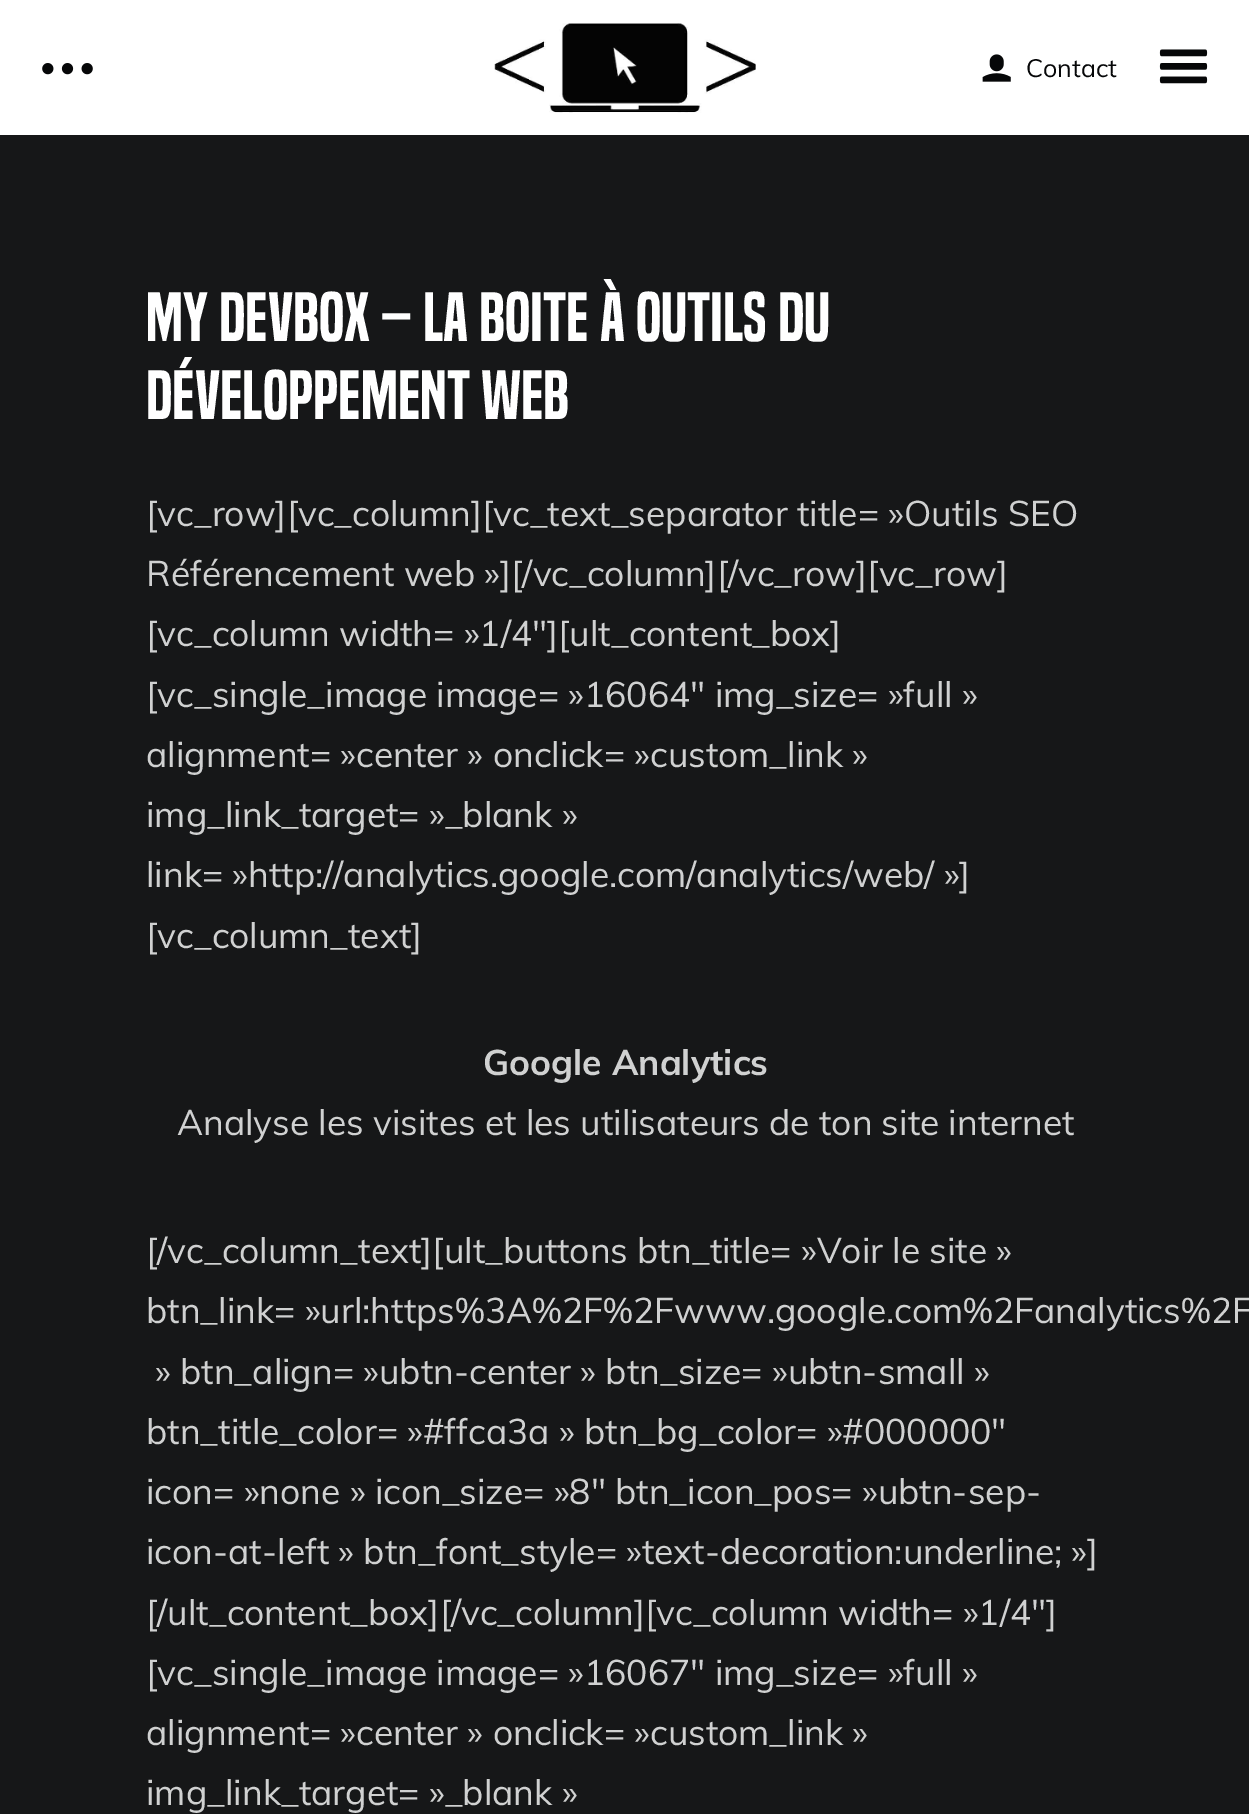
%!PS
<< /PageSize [1249 1814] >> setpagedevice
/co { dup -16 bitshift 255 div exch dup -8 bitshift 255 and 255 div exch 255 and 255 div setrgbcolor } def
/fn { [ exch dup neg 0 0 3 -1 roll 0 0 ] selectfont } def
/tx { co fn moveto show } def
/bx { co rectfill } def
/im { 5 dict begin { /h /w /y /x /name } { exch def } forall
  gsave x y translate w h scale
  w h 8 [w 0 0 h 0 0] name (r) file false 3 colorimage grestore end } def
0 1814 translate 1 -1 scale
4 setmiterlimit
0 0 1249 1814 16#161718 bx
0 0 1249 135 16#FFFFFF bx
(media/1.raw) 42 63 51 12 im
(media/2.raw) 494 23 262 90 im
(media/3.raw) 982 54 29 28 im
(media/4.raw) 1159 49 49 35 im
(Contact) 1026 77 /Muli-Regular 25 16#060708 tx
(My DevBox – La boite à outils du) 146 341 /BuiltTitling-Regular 64.5 16#FFFFFF tx
(développement web) 146 419 /BuiltTitling-Regular 64.5 16#FFFFFF tx
([vc_row][vc_column][vc_text_separator title= »Outils SEO) 146 526 /Muli-Regular 35.45 16#D0D1D1 tx
(Référencement web »][/vc_column][/vc_row][vc_row]) 146 586 /Muli-Regular 35.45 16#D0D1D1 tx
([vc_column width= »1/4″][ult_content_box]) 146 646 /Muli-Regular 35.45 16#D0D1D1 tx
([vc_single_image image= »16064″ img_size= »full ») 146 707 /Muli-Regular 35.45 16#D0D1D1 tx
(alignment= »center » onclick= »custom_link ») 146 767 /Muli-Regular 35.45 16#D0D1D1 tx
(img_link_target= »_blank ») 146 827 /Muli-Regular 35.45 16#D0D1D1 tx
(link= »http://analytics.google.com/analytics/web/ »]) 146 887 /Muli-Regular 35.45 16#D0D1D1 tx
([vc_column_text]) 146 948 /Muli-Regular 35.45 16#D0D1D1 tx
(Google Analytics) 483 1075 /Muli-Bold 35.45 16#D0D1D1 tx
(Analyse les visites et les utilisateurs de ton site internet) 177 1135 /Muli-Regular 35.45 16#D0D1D1 tx
([/vc_column_text][ult_buttons btn_title= »Voir le site ») 146 1263 /Muli-Regular 35.45 16#D0D1D1 tx
(btn_link= »url:https%3A%2F%2Fwww.google.com%2Fanalytics%2F) 146 1323 /Muli-Regular 35.45 16#D0D1D1 tx
(» btn_align= »ubtn-center » btn_size= »ubtn-small ») 155 1384 /Muli-Regular 35.45 16#D0D1D1 tx
(btn_title_color= »#ffca3a » btn_bg_color= »#000000″) 146 1444 /Muli-Regular 35.45 16#D0D1D1 tx
(icon= »none » icon_size= »8″ btn_icon_pos= »ubtn-sep-) 146 1504 /Muli-Regular 35.45 16#D0D1D1 tx
(icon-at-left » btn_font_style= »text-decoration:underline; »]) 146 1564 /Muli-Regular 35.45 16#D0D1D1 tx
([/ult_content_box][/vc_column][vc_column width= »1/4″]) 146 1625 /Muli-Regular 35.45 16#D0D1D1 tx
([vc_single_image image= »16067″ img_size= »full ») 146 1685 /Muli-Regular 35.45 16#D0D1D1 tx
(alignment= »center » onclick= »custom_link ») 146 1745 /Muli-Regular 35.45 16#D0D1D1 tx
(img_link_target= »_blank ») 146 1805 /Muli-Regular 35.45 16#D0D1D1 tx
showpage
